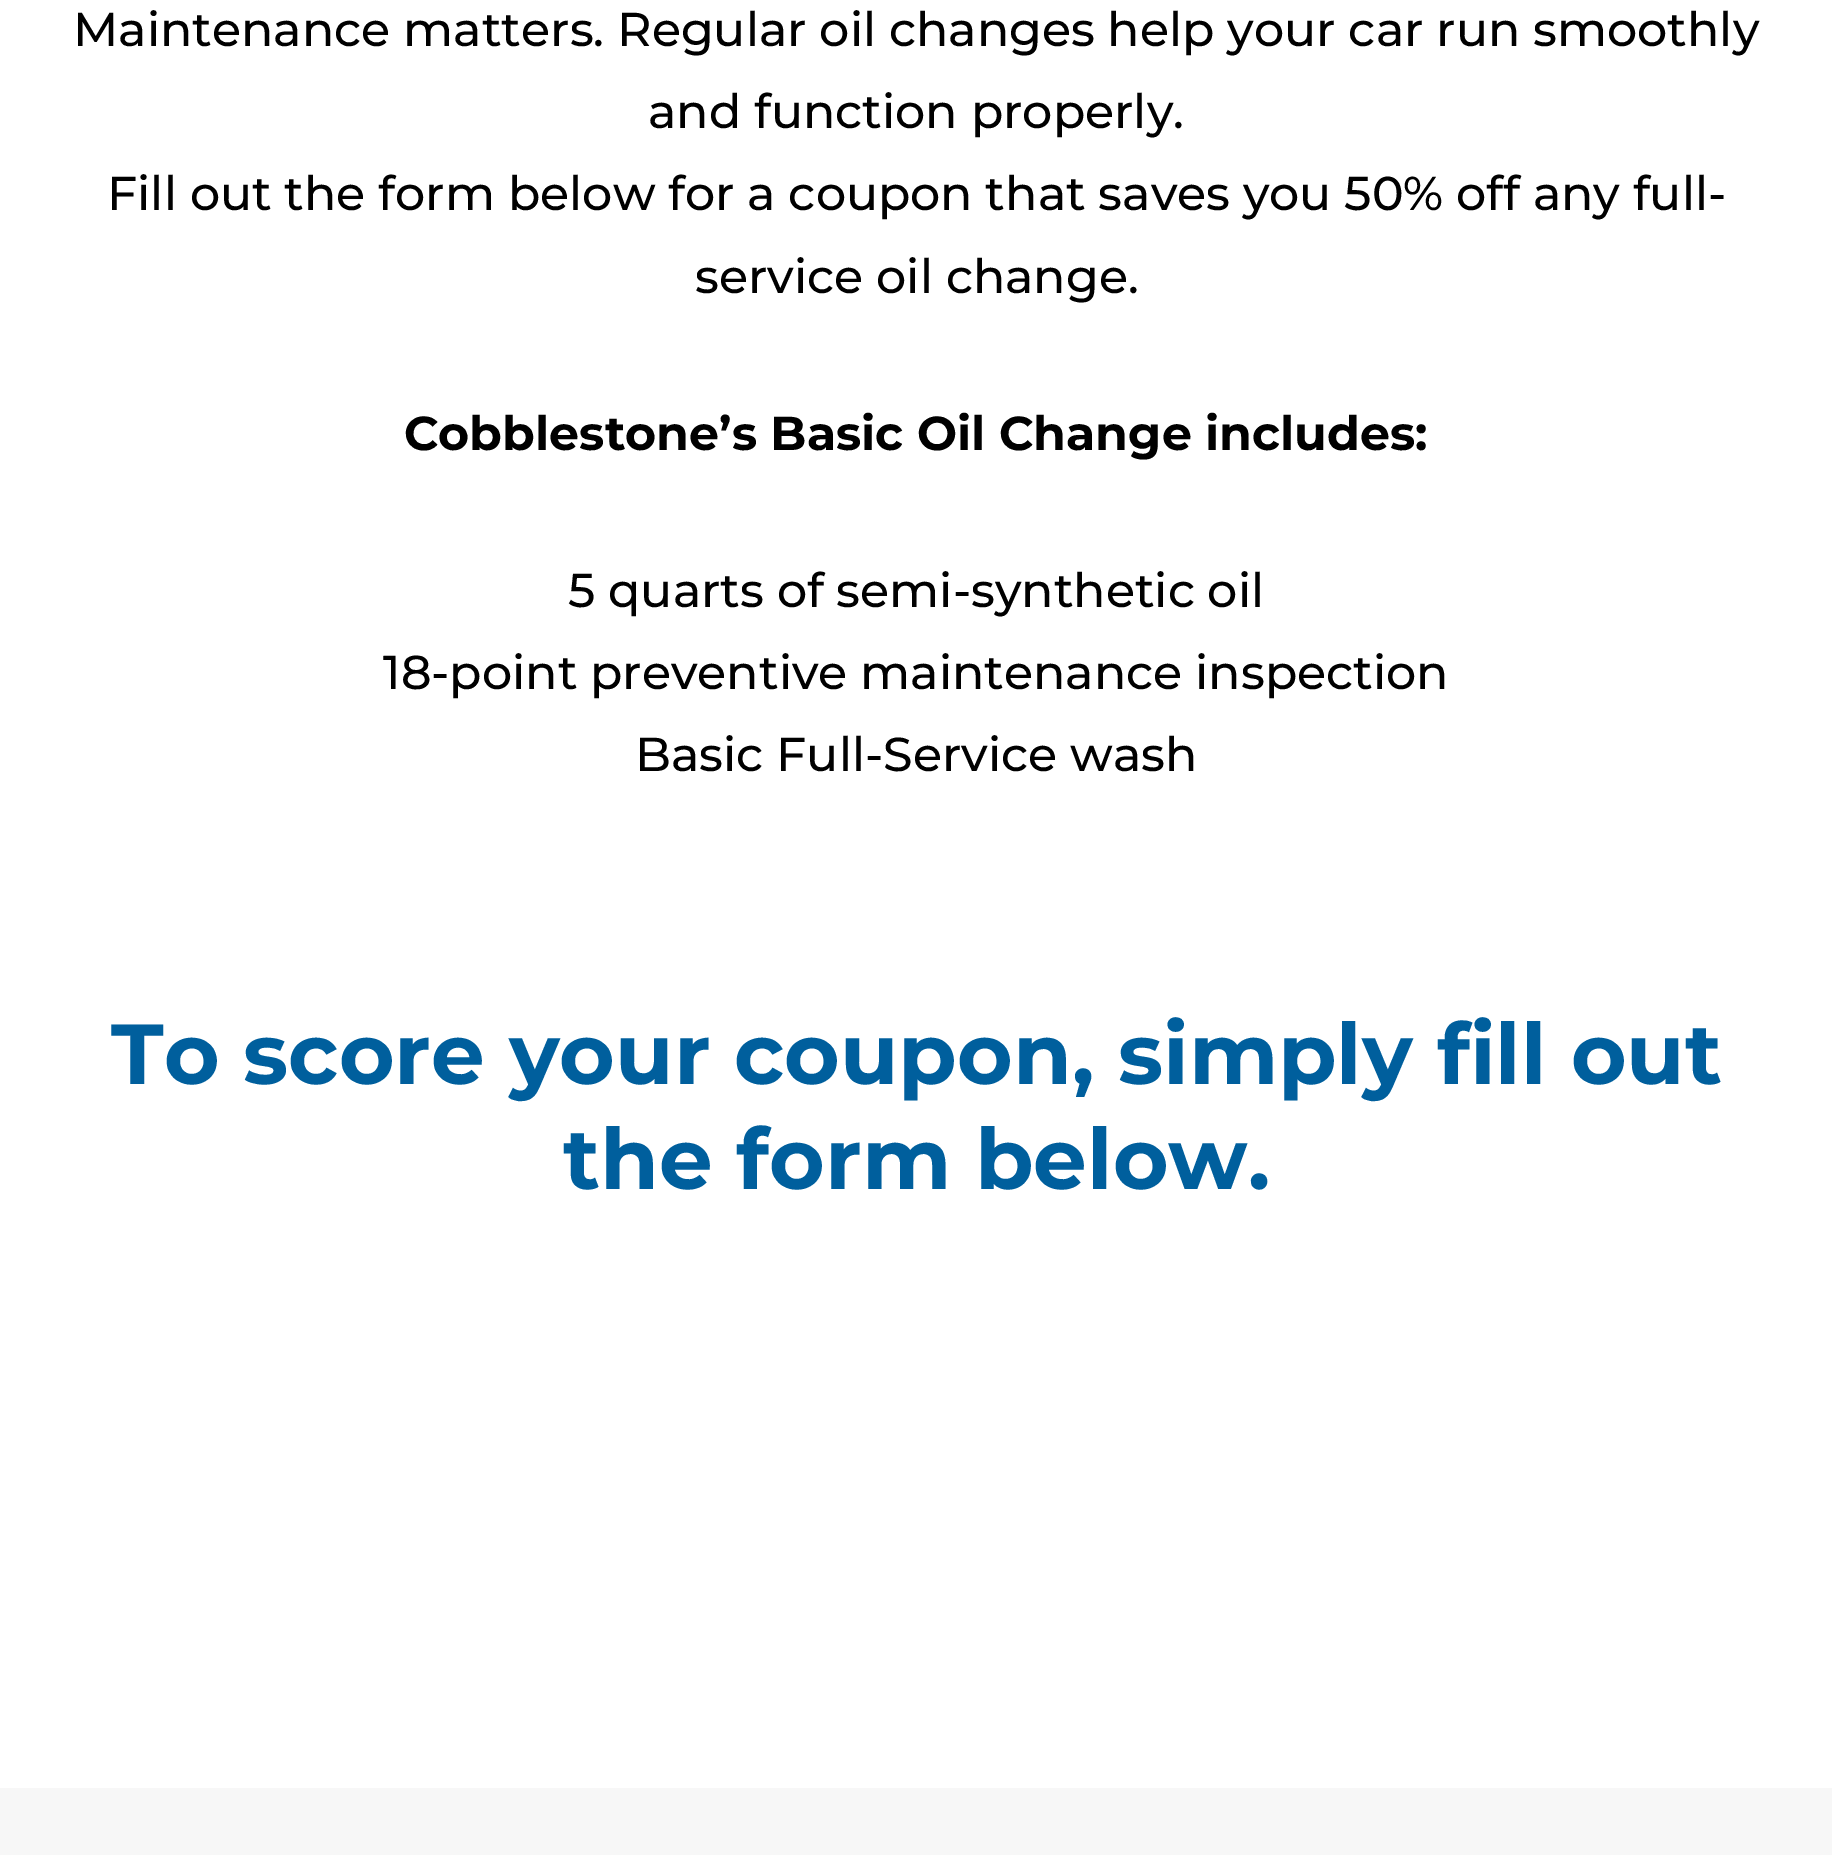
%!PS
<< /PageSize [1832 1855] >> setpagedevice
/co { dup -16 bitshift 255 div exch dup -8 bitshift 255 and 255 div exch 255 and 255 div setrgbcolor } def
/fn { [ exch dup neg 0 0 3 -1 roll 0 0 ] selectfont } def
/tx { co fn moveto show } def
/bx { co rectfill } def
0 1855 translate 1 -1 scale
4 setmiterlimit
0 0 1832 1855 16#FFFFFF bx
0 1788 1832 67 16#F7F7F7 bx
(Maintenance matters. Regular oil changes help your car run smoothly) 73 46 /Montserrat-Medium 47.5 16#000000 tx
(and function properly.) 648 128 /Montserrat-Medium 47.5 16#000000 tx
(Fill out the form below for a coupon that saves you 50% off any full-) 107 210 /Montserrat-Medium 47.5 16#000000 tx
(service oil change.) 695 293 /Montserrat-Medium 47.5 16#000000 tx
(Cobblestone’s Basic Oil Change includes:) 404 450 /Montserrat-Bold 47.5 16#000000 tx
(5 quarts of semi-synthetic oil) 568 607 /Montserrat-Medium 47.5 16#000000 tx
(18-point preventive maintenance inspection) 383 689 /Montserrat-Medium 47.5 16#000000 tx
(Basic Full-Service wash) 635 771 /Montserrat-Medium 47.5 16#000000 tx
(To score your coupon, simply fill out) 111 1084 /Montserrat-Bold 85 16#005F9D tx
(the form below.) 563 1189 /Montserrat-Bold 85 16#005F9D tx
showpage
